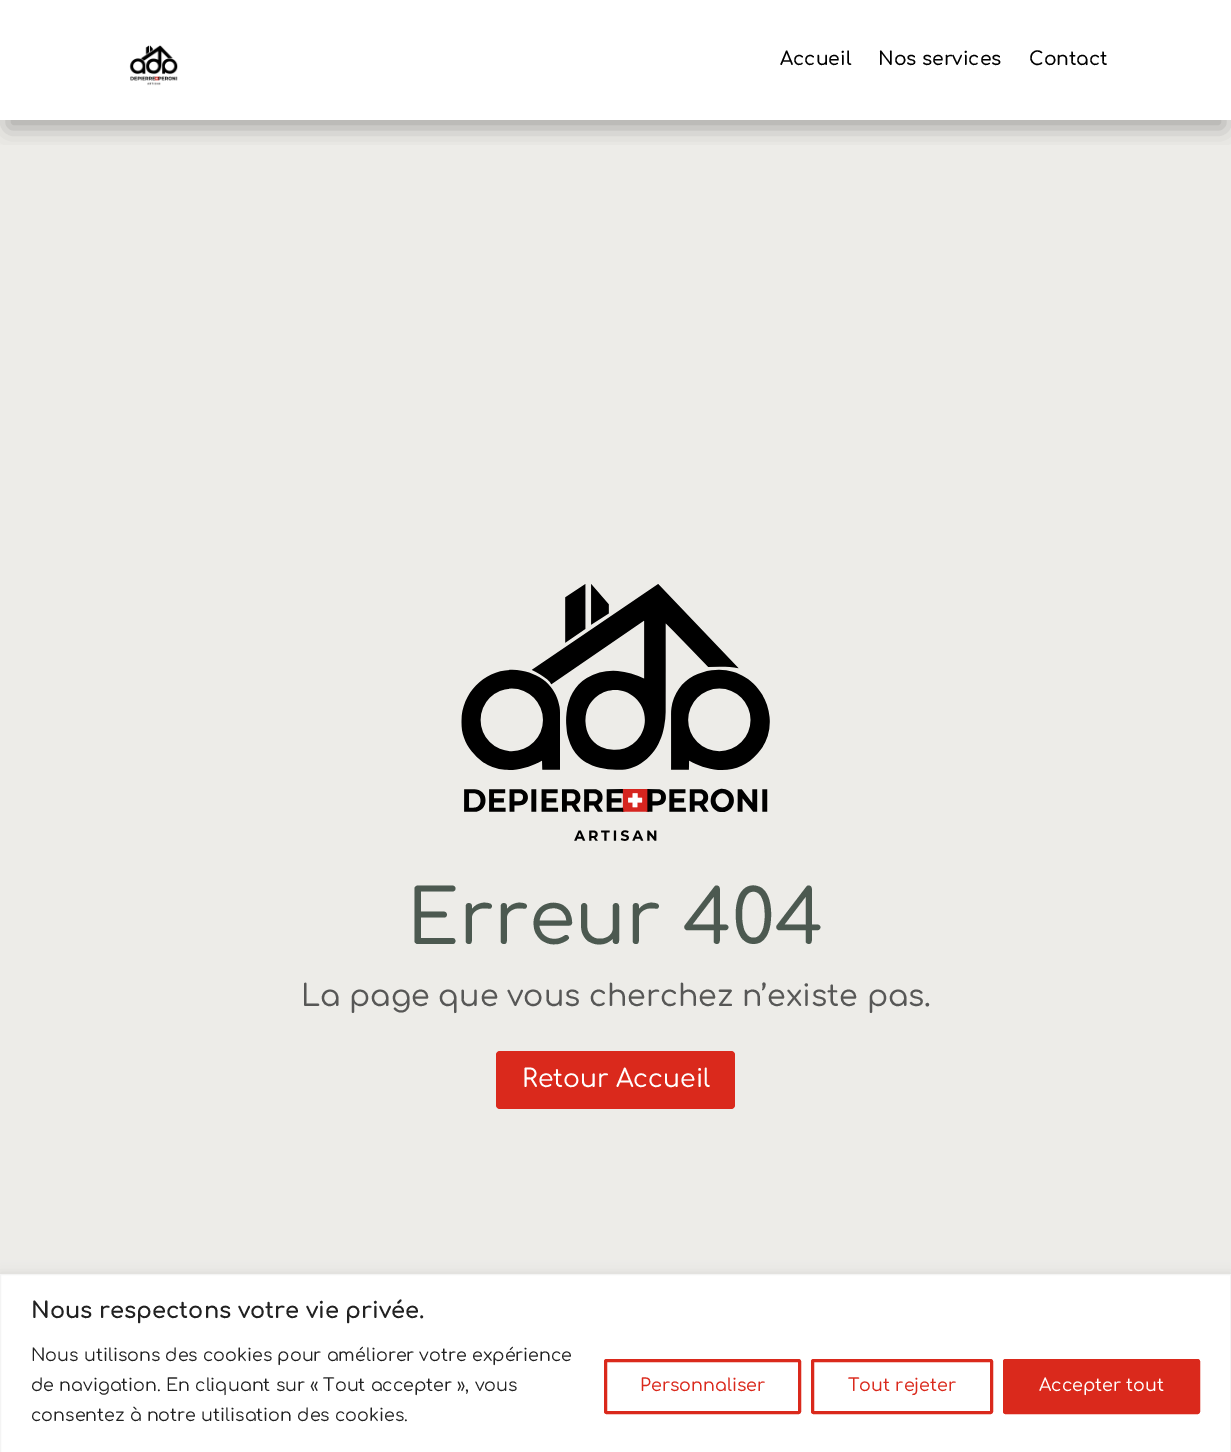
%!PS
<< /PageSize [1231 1452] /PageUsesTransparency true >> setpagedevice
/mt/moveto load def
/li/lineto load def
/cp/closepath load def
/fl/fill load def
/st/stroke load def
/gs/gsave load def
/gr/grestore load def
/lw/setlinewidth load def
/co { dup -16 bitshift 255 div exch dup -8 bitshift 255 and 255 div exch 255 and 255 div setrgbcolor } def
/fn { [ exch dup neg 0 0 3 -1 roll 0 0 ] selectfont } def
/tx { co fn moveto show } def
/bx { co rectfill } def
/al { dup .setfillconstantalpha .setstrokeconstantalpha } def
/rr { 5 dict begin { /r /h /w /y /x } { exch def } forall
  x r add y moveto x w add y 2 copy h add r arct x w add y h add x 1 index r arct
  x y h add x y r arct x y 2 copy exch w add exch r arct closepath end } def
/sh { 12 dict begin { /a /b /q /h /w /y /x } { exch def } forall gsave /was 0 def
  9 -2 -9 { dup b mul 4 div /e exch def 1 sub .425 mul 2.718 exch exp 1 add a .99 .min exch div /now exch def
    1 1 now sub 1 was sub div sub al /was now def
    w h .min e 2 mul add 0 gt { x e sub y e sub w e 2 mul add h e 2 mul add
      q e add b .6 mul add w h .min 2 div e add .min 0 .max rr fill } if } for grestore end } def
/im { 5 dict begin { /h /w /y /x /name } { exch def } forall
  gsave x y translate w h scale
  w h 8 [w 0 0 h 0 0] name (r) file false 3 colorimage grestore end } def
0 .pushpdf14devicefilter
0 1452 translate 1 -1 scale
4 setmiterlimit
0 0 1231 1452 16#FFFFFF bx
0 120 1231 1154 16#EDECE8 bx
gs
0 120 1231 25 rectclip
16#000000 co
8 23 1216 105 0 11 .3 sh
gr
(media/1.raw) 129 45 49 41 im
(media/2.raw) 461 584 309 257 im
16#DA291C co
496 1051 239 58 4 rr fl
16#ACABAB co
0 1273 1231 178 0 6 .3 sh
16#FFFFFF co
.5 1274.5 mt 1230.5 1274.5 li 1230.5 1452.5 li .5 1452.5 li cp gs fl gr
16#F4F4F4 co
st
16#DA291C co
3 lw
605.5 1360.5 194 52 1 rr st
812.5 1360.5 179 52 1 rr st
1004.5 1360.5 194 52 1 rr gs fl gr
st
(Accueil) 780 65 /Comfortaa-SemiBold 18.75 16#000000 tx
(Nos services) 878 65 /Comfortaa-SemiBold 18.75 16#000000 tx
(Contact) 1029 65 /Comfortaa-SemiBold 18.75 16#000000 tx
(Erreur 404) 407 944 /Comfortaa-Medium 75 16#4C5950 tx
(La page que vous cherchez n’existe pas.) 301 1006 /Comfortaa-Medium 30 16#575756 tx
(Retour Accueil) 522 1087 /Comfortaa-Medium 25 16#FFFFFF tx
(Nous respectons votre vie privée.) 31 1318 /Comfortaa-Bold 22.5 16#212121 tx
(Nous utilisons des cookies pour améliorer votre expérience) 31 1361 /Comfortaa-Regular 17.5 16#212121 tx
(de navigation. En cliquant sur « Tout accepter », vous) 31 1391 /Comfortaa-Regular 17.5 16#212121 tx
(consentez à notre utilisation des cookies.) 31 1421 /Comfortaa-Regular 17.5 16#212121 tx
(Personnaliser) 640 1391 /Comfortaa-Medium 17.5 16#DA291C tx
(Tout rejeter) 848 1391 /Comfortaa-Medium 17.5 16#DA291C tx
(Accepter tout) 1039 1391 /Comfortaa-Medium 17.5 16#FFFFFF tx
.poppdf14devicefilter showpage
